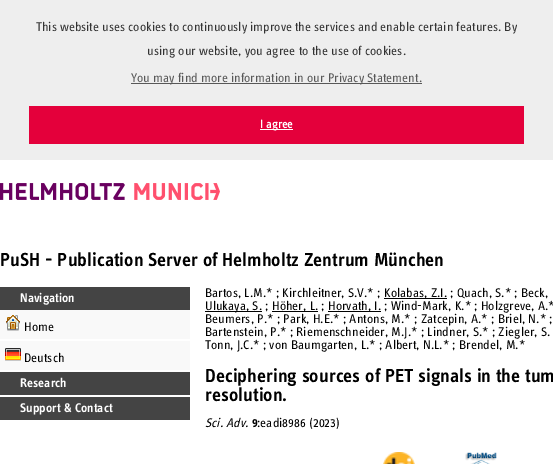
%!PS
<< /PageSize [553 464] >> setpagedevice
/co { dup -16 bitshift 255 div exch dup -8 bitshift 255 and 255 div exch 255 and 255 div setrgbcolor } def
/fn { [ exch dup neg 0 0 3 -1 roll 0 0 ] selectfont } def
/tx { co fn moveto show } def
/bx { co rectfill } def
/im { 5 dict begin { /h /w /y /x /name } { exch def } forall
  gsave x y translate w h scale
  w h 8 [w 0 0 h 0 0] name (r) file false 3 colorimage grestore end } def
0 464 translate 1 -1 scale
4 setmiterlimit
0 0 553 464 16#FFFFFF bx
0 0 553 160 16#EEEEEE bx
131 83 291 1 16#585858 bx
29 106 495 38 16#E4003B bx
260 129 33 1 16#FFFFFF bx
(media/1.raw) 0 183 220 17 im
0 287 190 23 16#444444 bx
0 310 190 29 16#F9F9F9 bx
(media/2.raw) 6 315 14 16 im
0 341 190 29 16#F9F9F9 bx
(media/3.raw) 5 348 16 13 im
0 372 190 23 16#444444 bx
0 397 190 23 16#444444 bx
384 298 63 1 16#000000 bx
205 311 57 1 16#000000 bx
272 311 46 1 16#000000 bx
328 311 53 1 16#000000 bx
(media/4.raw) 383 452 32 12 im
(media/5.raw) 465 452 32 12 im
(This website uses cookies to continuously improve the services and enable certain features. By) 36 31 /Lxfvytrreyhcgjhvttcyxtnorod-Regular 13 16#333333 tx
(using our website, you agree to the use of cookies.) 147 55 /Lxfvytrreyhcgjhvttcyxtnorod-Regular 13 16#333333 tx
(You may find more information in our Privacy Statement.) 131 82 /Lxfvytrreyhcgjhvttcyxtnorod-Regular 13 16#585858 tx
(I agree) 260 128 /Lxfvytrreyhcgjhvttcyxtnorod-Bold 12 16#FFFFFF tx
(PuSH - Publication Server of Helmholtz Zentrum München) 0 266 /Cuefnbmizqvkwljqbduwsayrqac-SemiBold 19.5 16#000000 tx
(Navigation) 20 302 /Cuefnbmizqvkwljqbduwsayrqac-SemiBold 13 16#FFFFFF tx
(Home) 24 331 /Lxfvytrreyhcgjhvttcyxtnorod-Regular 13 16#000000 tx
(Deutsch) 24 362 /Lxfvytrreyhcgjhvttcyxtnorod-Regular 13 16#000000 tx
(Research) 20 387 /Cuefnbmizqvkwljqbduwsayrqac-SemiBold 13 16#FFFFFF tx
(Support & Contact) 20 412 /Cuefnbmizqvkwljqbduwsayrqac-SemiBold 13 16#FFFFFF tx
(Bartos, L.M.* ; Kirchleitner, S.V.* ;) 205 297 /Lxfvytrreyhcgjhvttcyxtnorod-Regular 13 16#000000 tx
(Kolabas, Z.I. ; Quach, S.* ; Beck,) 384 297 /Lxfvytrreyhcgjhvttcyxtnorod-Regular 13 16#000000 tx
(Ulukaya, S. ;) 205 310 /Lxfvytrreyhcgjhvttcyxtnorod-Regular 13 16#000000 tx
(Höher, L. ;) 272 310 /Lxfvytrreyhcgjhvttcyxtnorod-Regular 13 16#000000 tx
(Horvath, I. ; Wind-Mark, K.* ; Holzgreve, A.*) 328 310 /Lxfvytrreyhcgjhvttcyxtnorod-Regular 13 16#000000 tx
(Beumers, P.* ; Park, H.E.* ; Antons, M.* ; Zatcepin, A.* ; Briel, N.* ;) 205 323 /Lxfvytrreyhcgjhvttcyxtnorod-Regular 13 16#000000 tx
(Bartenstein, P.* ; Riemenschneider, M.J.* ; Lindner, S.* ; Ziegler, S.) 205 336 /Lxfvytrreyhcgjhvttcyxtnorod-Regular 13 16#000000 tx
(Tonn, J.C.* ; von Baumgarten, L.* ; Albert, N.L.* ; Brendel, M.*) 205 349 /Lxfvytrreyhcgjhvttcyxtnorod-Regular 13 16#000000 tx
(Deciphering sources of PET signals in the tum) 205 382 /Cuefnbmizqvkwljqbduwsayrqac-SemiBold 19.5 16#000000 tx
(resolution.) 205 401 /Cuefnbmizqvkwljqbduwsayrqac-SemiBold 19.5 16#000000 tx
(Sci. Adv.) 205 427 /Lxfvytrreyhcgjhvttcyxtnorod-Italic 13 16#000000 tx
(9) 252 427 /Cuefnbmizqvkwljqbduwsayrqac-SemiBold 13 16#000000 tx
(:eadi8986 \(2023\)) 257 427 /Lxfvytrreyhcgjhvttcyxtnorod-Regular 13 16#000000 tx
showpage
